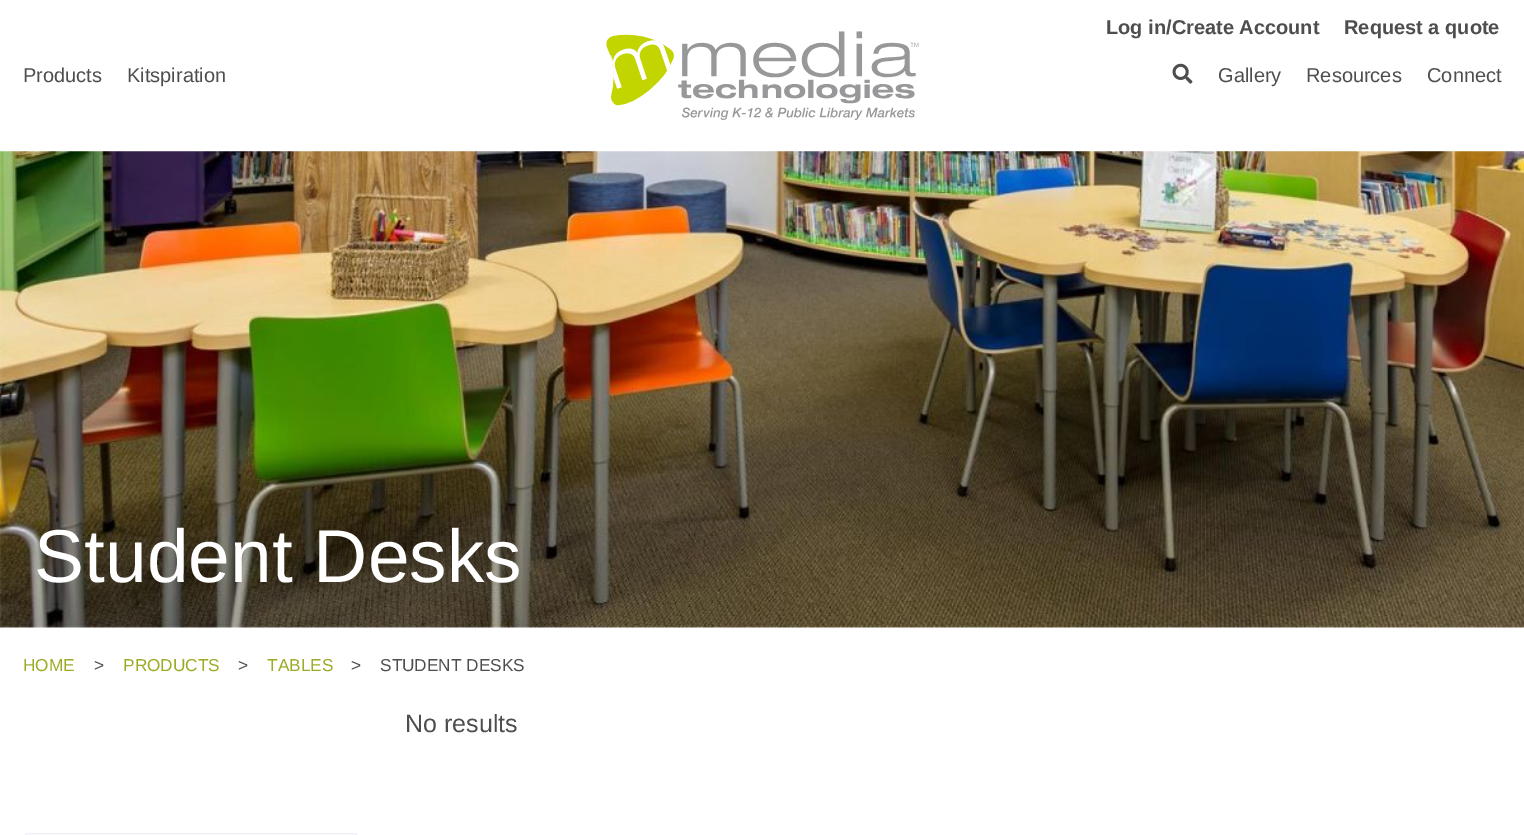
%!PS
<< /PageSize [1524 835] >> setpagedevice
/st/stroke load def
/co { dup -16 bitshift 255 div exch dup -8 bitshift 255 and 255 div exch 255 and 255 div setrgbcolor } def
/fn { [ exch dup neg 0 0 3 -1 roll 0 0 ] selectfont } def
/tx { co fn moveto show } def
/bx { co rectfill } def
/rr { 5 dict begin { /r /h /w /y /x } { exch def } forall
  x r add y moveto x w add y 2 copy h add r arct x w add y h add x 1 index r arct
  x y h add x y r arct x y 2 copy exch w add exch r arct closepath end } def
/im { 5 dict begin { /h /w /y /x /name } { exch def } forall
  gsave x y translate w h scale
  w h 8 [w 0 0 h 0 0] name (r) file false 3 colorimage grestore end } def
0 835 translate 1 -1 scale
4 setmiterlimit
0 0 1524 835 16#FFFFFF bx
(media/1.raw) 606 31 313 89 im
(media/2.raw) 1172 63 21 21 im
(media/3.raw) 0 151 1524 477 im
16#EFEFF5 co
24.5 833.5 333 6 3.5 rr st
(Log in/Create Account) 1106 34 /LiberationSans-Bold 20 16#4E4E4E tx
(Request a quote) 1344 34 /LiberationSans-Bold 20 16#4E4E4E tx
(Products) 23 82 /LiberationSans-Regular 20 16#4E4E4E tx
(Kitspiration) 127 82 /LiberationSans-Regular 20 16#4E4E4E tx
(Gallery) 1218 82 /LiberationSans-Regular 20 16#4E4E4E tx
(Resources) 1306 82 /LiberationSans-Regular 20 16#4E4E4E tx
(Connect) 1427 82 /LiberationSans-Regular 20 16#4E4E4E tx
(Student Desks) 34 582 /LiberationSans-Regular 75 16#FFFFFF tx
(HOME) 23 671 /LiberationSans-Regular 17.25 16#9DAA24 tx
(>) 94 671 /LiberationSans-Regular 17.25 16#4E4E4E tx
(PRODUCTS) 123 671 /LiberationSans-Regular 17.25 16#9DAA24 tx
(>) 238 671 /LiberationSans-Regular 17.25 16#4E4E4E tx
(TABLES) 267 671 /LiberationSans-Regular 17.25 16#9DAA24 tx
(>) 351 671 /LiberationSans-Regular 17.25 16#4E4E4E tx
(STUDENT DESKS) 380 671 /LiberationSans-Regular 17.25 16#4E4E4E tx
(No results) 405 732 /LiberationSans-Regular 25 16#4E4E4E tx
showpage
